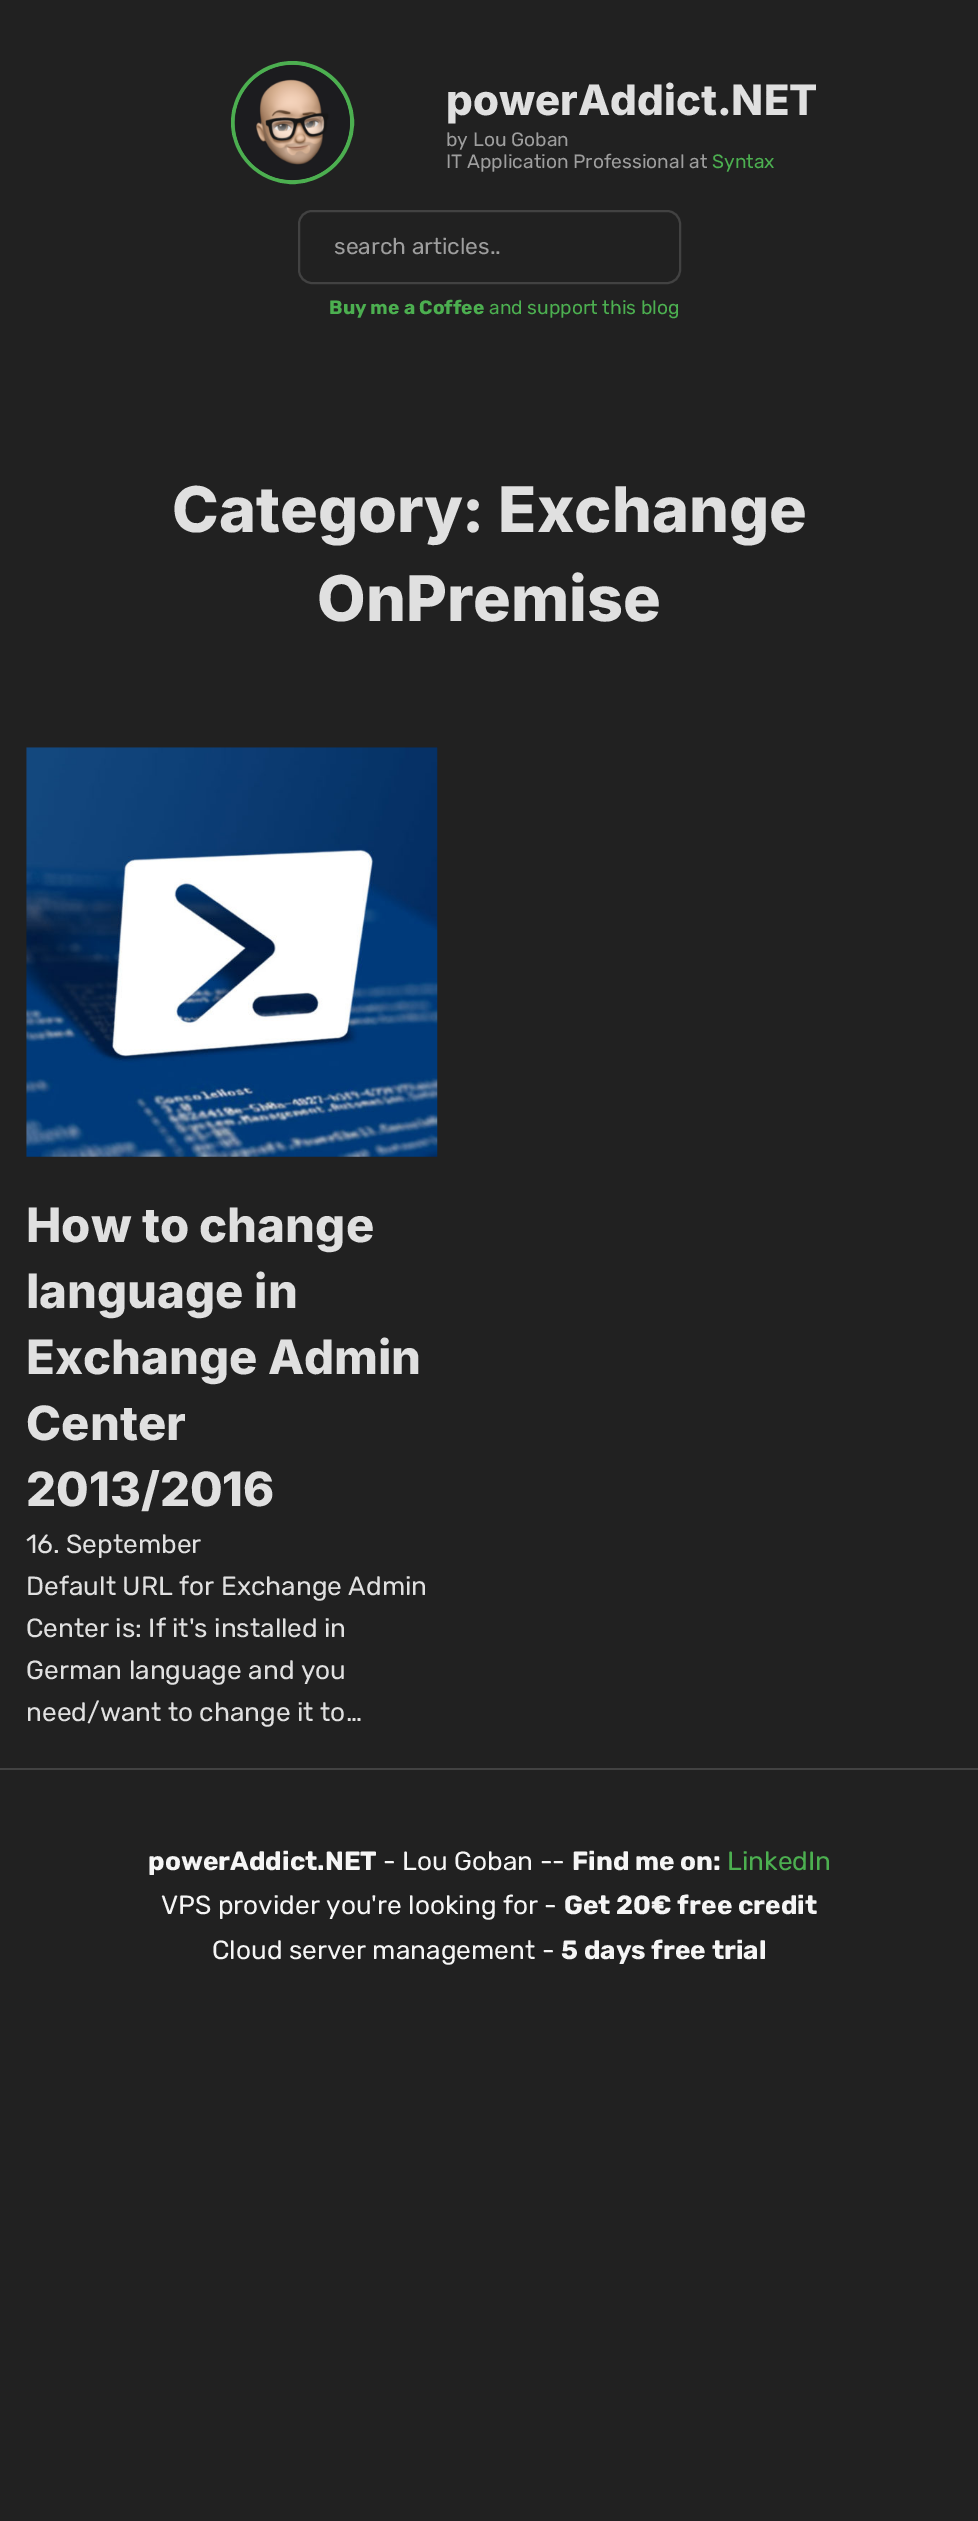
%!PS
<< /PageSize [978 2521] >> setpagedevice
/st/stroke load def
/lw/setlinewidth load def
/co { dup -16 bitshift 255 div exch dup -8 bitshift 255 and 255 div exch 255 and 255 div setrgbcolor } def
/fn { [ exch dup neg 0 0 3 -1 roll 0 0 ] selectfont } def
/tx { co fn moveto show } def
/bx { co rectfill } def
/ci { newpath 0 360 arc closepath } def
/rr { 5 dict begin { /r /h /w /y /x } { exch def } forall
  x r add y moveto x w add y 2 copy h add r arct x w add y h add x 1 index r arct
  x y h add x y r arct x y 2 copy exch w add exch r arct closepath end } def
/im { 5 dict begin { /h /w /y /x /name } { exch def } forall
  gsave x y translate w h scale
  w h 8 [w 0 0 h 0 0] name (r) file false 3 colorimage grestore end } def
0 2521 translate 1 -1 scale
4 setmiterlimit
0 0 978 2521 16#212121 bx
16#4CAF50 co
4 lw
292.5 122.5 59.5 ci st
(media/1.raw) 234 64 116 117 im
16#424242 co
2 lw
299 211 381 72 13 rr st
(media/2.raw) 26 747 412 410 im
0 1768 978 2 16#424242 bx
(powerAddict.NET) 446 115 /Inter-ExtraBold 42 16#E0E0E0 tx
(by Lou Goban) 446 146 /Rubik-Regular 19.25 16#9E9E9E tx
(IT Application Professional at) 446 168 /Rubik-Regular 19.25 16#9E9E9E tx
(Syntax) 712 168 /Rubik-Regular 19.25 16#4CAF50 tx
(search articles..) 334 254 /Rubik-Regular 22.75 16#9E9E9E tx
(Buy me a Coffee) 329 314 /Rubik-Bold 19.25 16#4CAF50 tx
(and support this blog) 489 314 /Rubik-Regular 19.25 16#4CAF50 tx
(Category: Exchange) 172 532 /Inter-ExtraBold 63 16#E0E0E0 tx
(OnPremise) 317 621 /Inter-ExtraBold 63 16#E0E0E0 tx
(How to change) 26 1242 /Inter-ExtraBold 47.25 16#E0E0E0 tx
(language in) 26 1308 /Inter-ExtraBold 47.25 16#E0E0E0 tx
(Exchange Admin) 26 1374 /Inter-ExtraBold 47.25 16#E0E0E0 tx
(Center) 26 1440 /Inter-ExtraBold 47.25 16#E0E0E0 tx
(2013/2016) 26 1506 /Inter-ExtraBold 47.25 16#E0E0E0 tx
(16. September) 26 1553 /Rubik-Regular 26.25 16#E0E0E0 tx
(Default URL for Exchange Admin) 26 1595 /Rubik-Regular 26.25 16#E0E0E0 tx
(Center is: If it's installed in) 26 1637 /Rubik-Regular 26.25 16#E0E0E0 tx
(German language and you) 26 1679 /Rubik-Regular 26.25 16#E0E0E0 tx
(need/want to change it to…) 26 1721 /Rubik-Regular 26.25 16#E0E0E0 tx
(powerAddict.NET) 148 1870 /Rubik-Bold 26.25 16#F5F5F5 tx
(- Lou Goban --) 383 1870 /Rubik-Regular 26.25 16#F5F5F5 tx
(Find me on:) 572 1870 /Rubik-Bold 26.25 16#F5F5F5 tx
(LinkedIn) 727 1870 /Rubik-Regular 26.25 16#4CAF50 tx
(VPS provider you're looking for -) 161 1914 /Rubik-Regular 26.25 16#F5F5F5 tx
(Get 20€ free credit) 564 1914 /Rubik-Bold 26.25 16#F5F5F5 tx
(Cloud server management -) 212 1959 /Rubik-Regular 26.25 16#F5F5F5 tx
(5 days free trial) 561 1959 /Rubik-Bold 26.25 16#F5F5F5 tx
showpage
